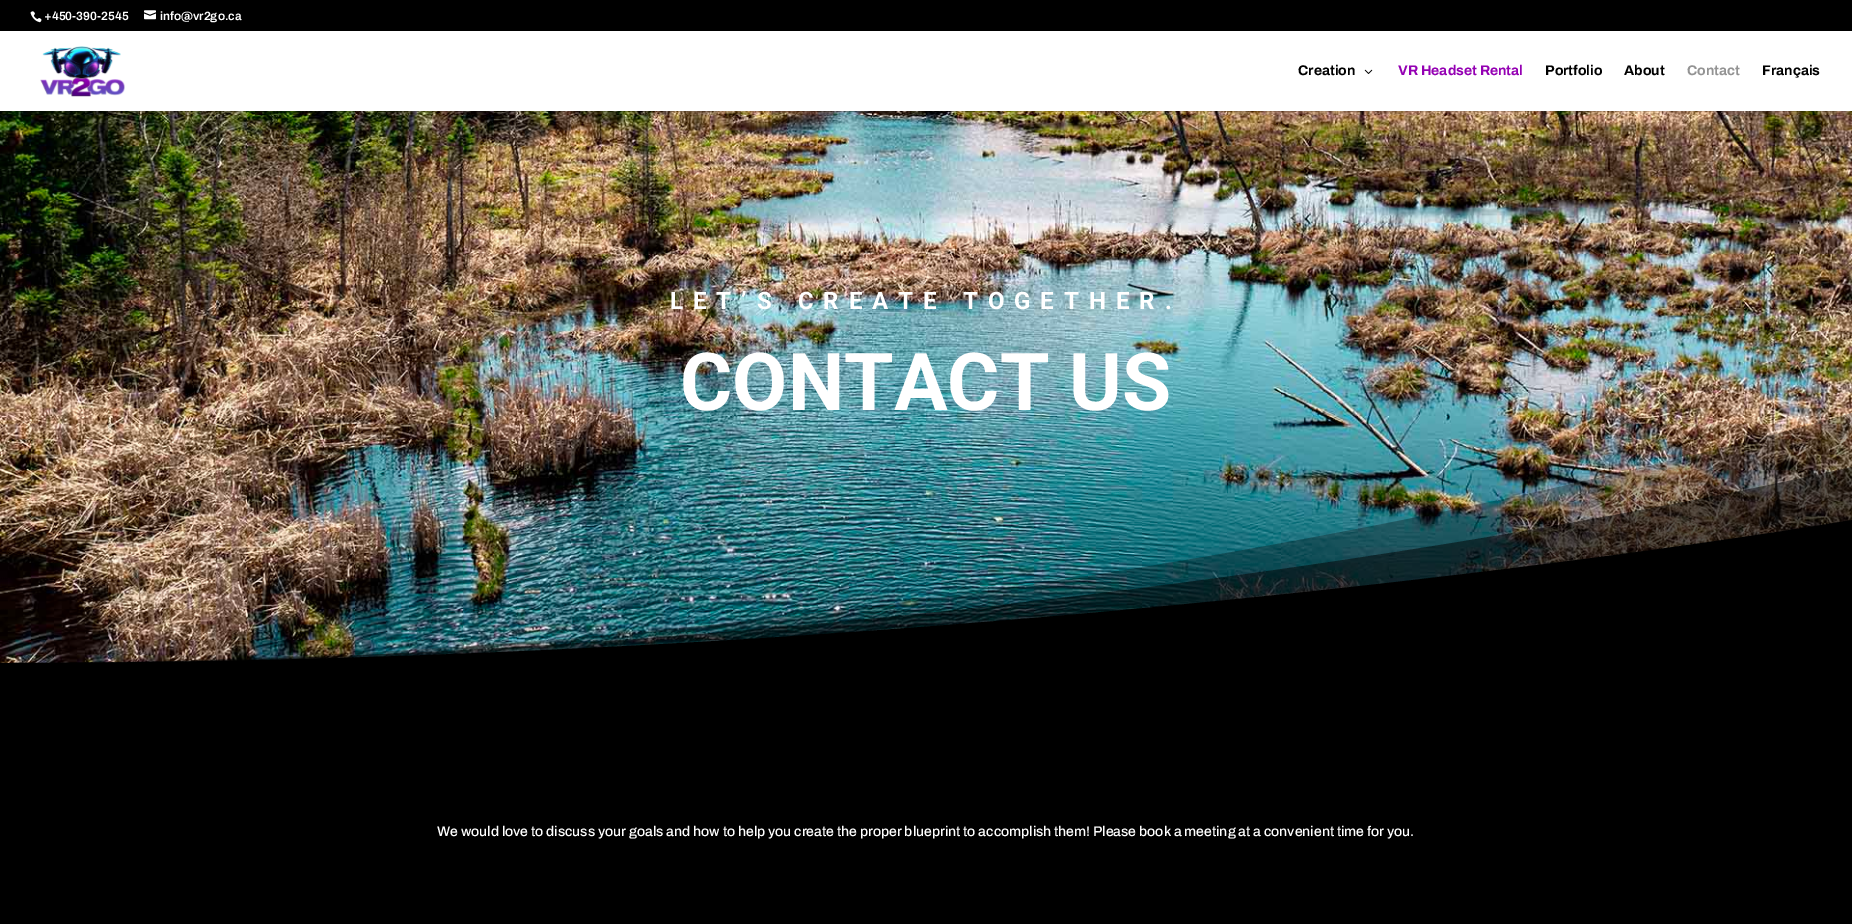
%!PS
<< /PageSize [1852 924] /PageUsesTransparency true >> setpagedevice
/mt/moveto load def
/li/lineto load def
/ct/curveto load def
/cp/closepath load def
/fl/fill load def
/co { dup -16 bitshift 255 div exch dup -8 bitshift 255 and 255 div exch 255 and 255 div setrgbcolor } def
/fn { [ exch dup neg 0 0 3 -1 roll 0 0 ] selectfont } def
/tx { co fn moveto show } def
/bx { co rectfill } def
/al { dup .setfillconstantalpha .setstrokeconstantalpha } def
/im { 5 dict begin { /h /w /y /x /name } { exch def } forall
  gsave x y translate w h scale
  w h 8 [w 0 0 h 0 0] name (r) file false 3 colorimage grestore end } def
0 .pushpdf14devicefilter
0 924 translate 1 -1 scale
4 setmiterlimit
0 0 1852 924 16#FFFFFF bx
0 0 1852 31 16#000000 bx
(media/1.raw) 30 11 12 12 im
(media/2.raw) 144 10 12 10 im
(media/5.raw) 0 111 1852 552 im
0.1 al
11 111 1841 1 16#000000 bx
1 al
(media/3.raw) 40 46 85 51 im
(media/4.raw) 1364 69 9 5 im
0.3 al
1852 663 mt 0 663 li 1023 663 1852 413 1852 413 ct cp fl
0.5 al
1852 663 mt 0 663 li 1023 663 1852 467 1852 467 ct cp fl
1 al
1852 663 mt 0 663 li 1023 663 1852 520 1852 520 ct cp fl
0 663 1852 261 16#000000 bx
(+450-390-2545) 44 20 /Archivo-SemiBold 12 16#FFFFFF tx
(info@vr2go.ca) 160 20 /Archivo-SemiBold 12 16#FFFFFF tx
(Creation) 1298 75 /Archivo-Bold 14 16#000000 tx
(VR Headset Rental) 1398 75 /Archivo-Bold 14 16#9400B3 tx
(Portfolio) 1545 75 /Archivo-Bold 14 16#000000 tx
(About) 1624 75 /Archivo-Bold 14 16#000000 tx
(Contact) 1687 75 /Archivo-Bold 14 16#939393 tx
(Français) 1762 75 /Archivo-Bold 14 16#000000 tx
/Roboto-Bold 24 fn
16#FFFFFF co
670 309 mt 10 0 (LET’S CREATE TOGETHER.) ashow
(CONTACT US) 680 410 /Roboto-Bold 80 16#FFFFFF tx
(We would love to discuss your goals and how to help you create the proper blueprint to accomplish them! Please book a meeting at a convenient time for you.) 437 836 /Archivo-Medium 14 16#FFFFFF tx
.poppdf14devicefilter showpage
